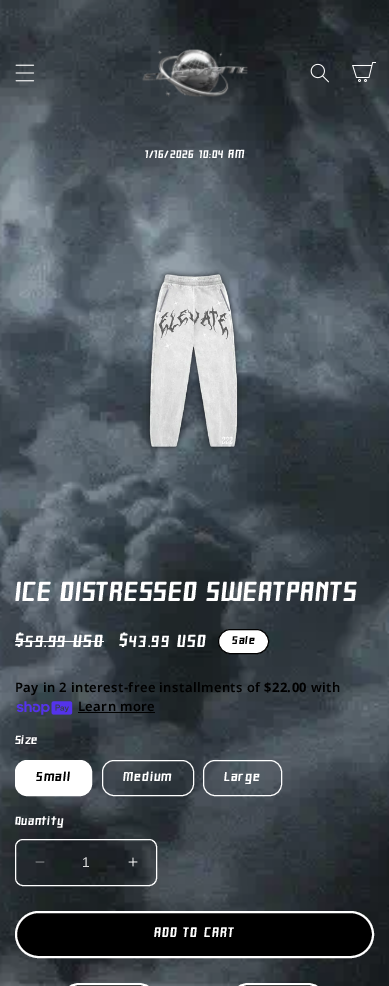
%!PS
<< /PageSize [389 986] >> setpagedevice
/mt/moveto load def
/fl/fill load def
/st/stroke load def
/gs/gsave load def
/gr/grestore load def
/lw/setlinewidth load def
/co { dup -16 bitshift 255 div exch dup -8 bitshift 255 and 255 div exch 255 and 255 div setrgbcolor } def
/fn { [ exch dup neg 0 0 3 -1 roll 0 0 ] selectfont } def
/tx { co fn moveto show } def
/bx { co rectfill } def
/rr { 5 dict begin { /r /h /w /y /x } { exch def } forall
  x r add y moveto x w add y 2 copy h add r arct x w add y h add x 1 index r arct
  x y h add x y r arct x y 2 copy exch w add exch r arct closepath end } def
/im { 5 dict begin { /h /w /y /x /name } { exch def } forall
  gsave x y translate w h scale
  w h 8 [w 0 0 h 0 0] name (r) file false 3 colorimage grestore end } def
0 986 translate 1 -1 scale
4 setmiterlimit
0 0 389 986 16#FFFFFF bx
(media/1.raw) 0 0 389 986 im
(media/2.raw) 15 64 20 18 im
(media/3.raw) 142 49 106 49 im
(media/4.raw) 310 63 19 20 im
(media/5.raw) 352 62 24 20 im
(media/6.raw) 146 269 96 183 im
15 641 89 1 16#FFFFFF bx
218.5 629.5 50 24 12 rr gs fl gr
16#000000 co
st
(media/7.raw) 16 701 57 14 im
78 712 77 1 16#000000 bx
16#FFFFFF co
15.5 760.5 76 35 11.5 rr gs fl gr
st
102.5 760.5 91 35 11.5 rr st
203.5 760.5 78 35 11.5 rr st
15.5 839.5 141 46 7.5 rr st
(media/8.raw) 35 861 10 2 im
(media/9.raw) 128 857 10 10 im
16#000000 co
16 912 357 45 22.5 rr gs fl gr
16#FFFFFF co
2 lw
st
16#000000 co
60 984 98 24 19.5 rr gs fl gr
16#FFFFFF co
st
16#000000 co
229 984 98 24 19.5 rr gs fl gr
16#FFFFFF co
st
/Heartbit-Bold 13 fn
145 158 mt .6 0 (1/16/2026 10:04 AM) ashow
/Heartbit-Bold 30 fn
15 601 mt .6 0 (ICE DISTRESSED SWEATPANTS) ashow
/Heartbit-Bold 19 fn
15 647 mt 1.25 0 ($59.99 USD) ashow
119 647 mt 1.25 0 ($43.99 USD) ashow
/Heartbit-Bold 12 fn
16#000000 co
232 644 mt 1 0 (Sale) ashow
/NotoSans-SemiBold 13 fn
15 692 mt .4 0 (Pay in 2 interest-free installments of) ashow
/NotoSans-Bold 13 fn
264 692 mt .4 0 ($22.00) ashow
/NotoSans-SemiBold 13 fn
311 692 mt .4 0 (with) ashow
78 711 mt .4 0 (Learn more) ashow
/Heartbit-Bold 13 fn
16#FFFFFF co
15 744 mt .4 0 (Size) ashow
/Heartbit-Bold 14 fn
16#000000 co
36 781 mt 1 0 (Small) ashow
16#FFFFFF co
123 781 mt 1 0 (Medium) ashow
224 781 mt 1 0 (Large) ashow
/Heartbit-Bold 13 fn
15 825 mt .4 0 (Quantity) ashow
(1) 82 867 /LiberationSans-Regular 14 16#DDDEDE tx
/Heartbit-Bold 15 fn
16#FFFFFF co
154 937 mt 1 0 (ADD TO CART) ashow
showpage
